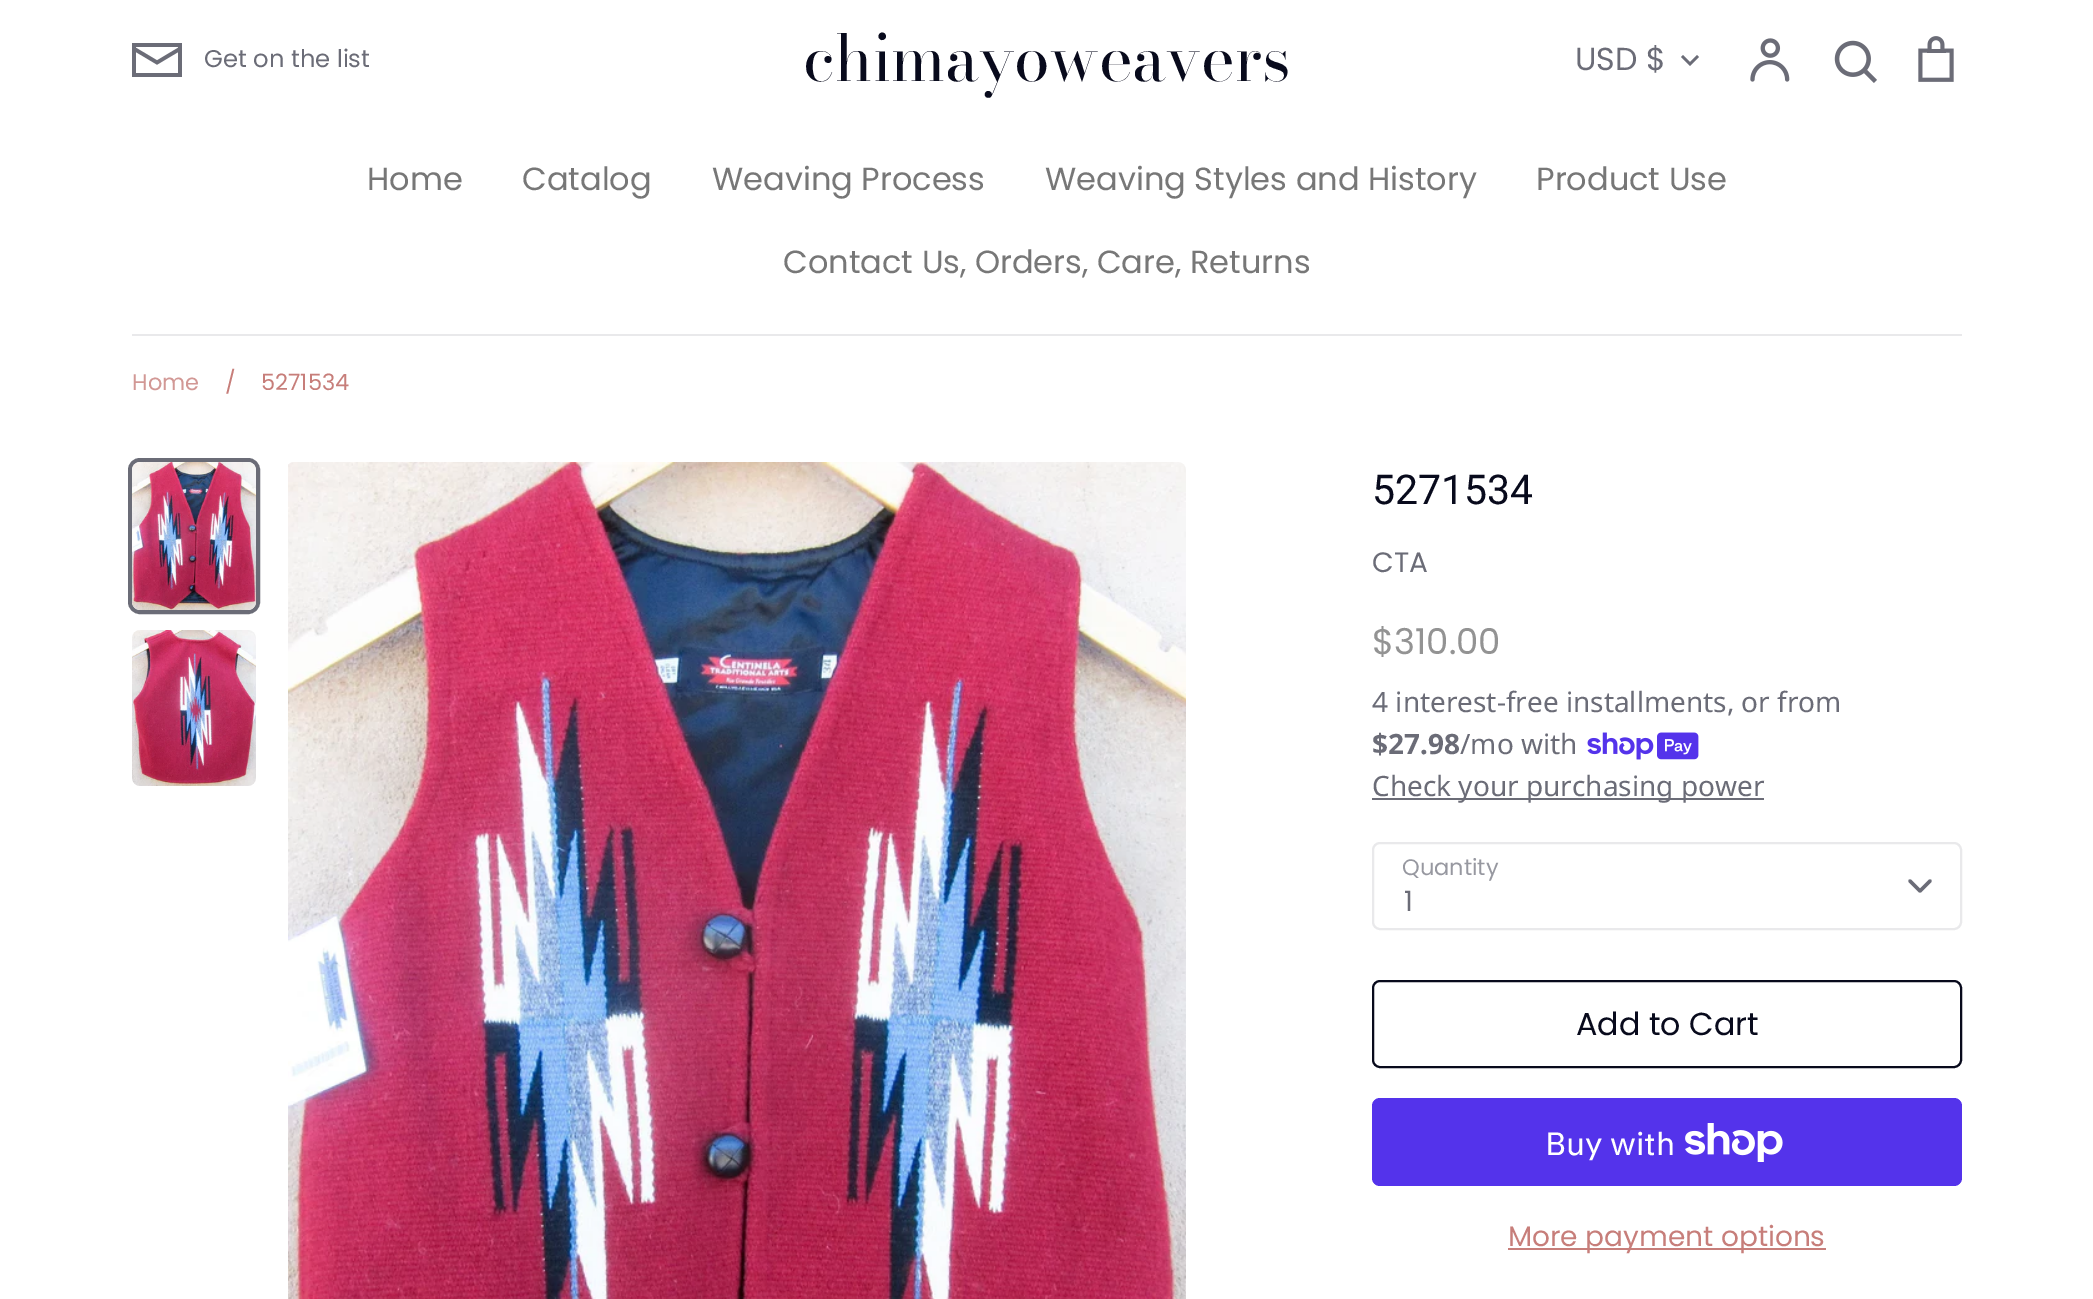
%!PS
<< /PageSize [2093 1299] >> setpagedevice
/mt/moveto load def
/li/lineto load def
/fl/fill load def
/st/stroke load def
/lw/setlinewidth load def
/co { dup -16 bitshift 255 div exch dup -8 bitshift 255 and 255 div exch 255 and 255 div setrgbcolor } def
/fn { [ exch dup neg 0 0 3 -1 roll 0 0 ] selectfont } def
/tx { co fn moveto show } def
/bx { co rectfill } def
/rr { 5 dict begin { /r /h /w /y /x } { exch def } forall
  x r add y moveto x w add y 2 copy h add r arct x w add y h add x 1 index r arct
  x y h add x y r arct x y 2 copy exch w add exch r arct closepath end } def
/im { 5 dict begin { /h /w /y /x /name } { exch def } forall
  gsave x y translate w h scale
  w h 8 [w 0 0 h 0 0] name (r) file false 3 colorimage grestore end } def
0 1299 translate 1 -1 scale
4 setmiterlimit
0 0 2093 1299 16#FFFFFF bx
(media/1.raw) 132 43 50 34 im
16#6B6C77 co
2.7 lw
1682 56 mt 1690 64 li 1698 56 li st
(media/2.raw) 1750 38 40 44 im
(media/3.raw) 1834 40 43 43 im
(media/4.raw) 1918 36 36 46 im
132 334 1830 2 16#E9E9EB bx
16#6B6C77 co
4 lw
130 460 128 152 10 rr st
(media/5.raw) 132 462 124 148 im
(media/6.raw) 132 630 124 156 im
(media/7.raw) 288 462 898 837 im
(media/8.raw) 1587 732 112 28 im
1372 798 392 2 16#6B6C77 bx
16#E9E9EB co
2 lw
1373 843 588 86 7 rr st
16#6B6C77 co
3.3 lw
1 setlinecap
1 setlinejoin
1910 881 mt 1920 891 li 1930 881 li st
16#080A1C co
2 lw
0 setlinecap
0 setlinejoin
1373 981 588 86 7 rr st
16#5433EB co
1372 1098 590 88 8 rr fl
(media/9.raw) 1685 1123 98 39 im
1508 1248 318 2 16#C77E7A bx
(Get on the list) 204 67 /Poppins-Regular 24.25 16#6B6C77 tx
(chimayoweavers) 803 81 /BodoniModa-Regular 64 16#080A1C tx
(USD $) 1575 70 /Poppins-Regular 31.75 16#6B6C77 tx
(Home) 367 190 /Poppins-Regular 32 16#777777 tx
(Catalog) 522 190 /Poppins-Regular 32 16#777777 tx
(Weaving Process) 712 190 /Poppins-Regular 32 16#777777 tx
(Weaving Styles and History) 1045 190 /Poppins-Regular 32 16#777777 tx
(Product Use) 1536 190 /Poppins-Regular 32 16#777777 tx
(Contact Us, Orders, Care, Returns) 783 273 /Poppins-Regular 32 16#777777 tx
(Home) 132 390 /Poppins-Regular 22.5 16#D29895 tx
(/) 225 390 /Poppins-Regular 22.5 16#C77E7A tx
(5271534) 261 390 /Poppins-Regular 22.5 16#C77E7A tx
(5271534) 1372 504 /Roboto-Regular 41 16#080A1C tx
(CTA) 1372 572 /Poppins-Regular 28 16#6B6C77 tx
($310.00) 1372 654 /Poppins-Regular 35.5 16#939393 tx
(4 interest-free installments, or from) 1372 712 /NotoSans-Regular 28 16#6B6C77 tx
($27.98) 1372 754 /NotoSans-Bold 28 16#6B6C77 tx
(/mo with) 1460 754 /NotoSans-Regular 28 16#6B6C77 tx
(Check your purchasing power) 1372 796 /NotoSans-Regular 28 16#6B6C77 tx
(Quantity) 1402 875 /Poppins-Regular 22.5 16#9798A0 tx
(1) 1404 911 /Poppins-Regular 28 16#6B6C77 tx
(Add to Cart) 1576 1035 /Poppins-Regular 31.75 16#080A1C tx
(Buy with) 1545 1155 /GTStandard-Regular 32 16#FFFFFF tx
(More payment options) 1508 1246 /Poppins-Regular 28 16#C77E7A tx
showpage
